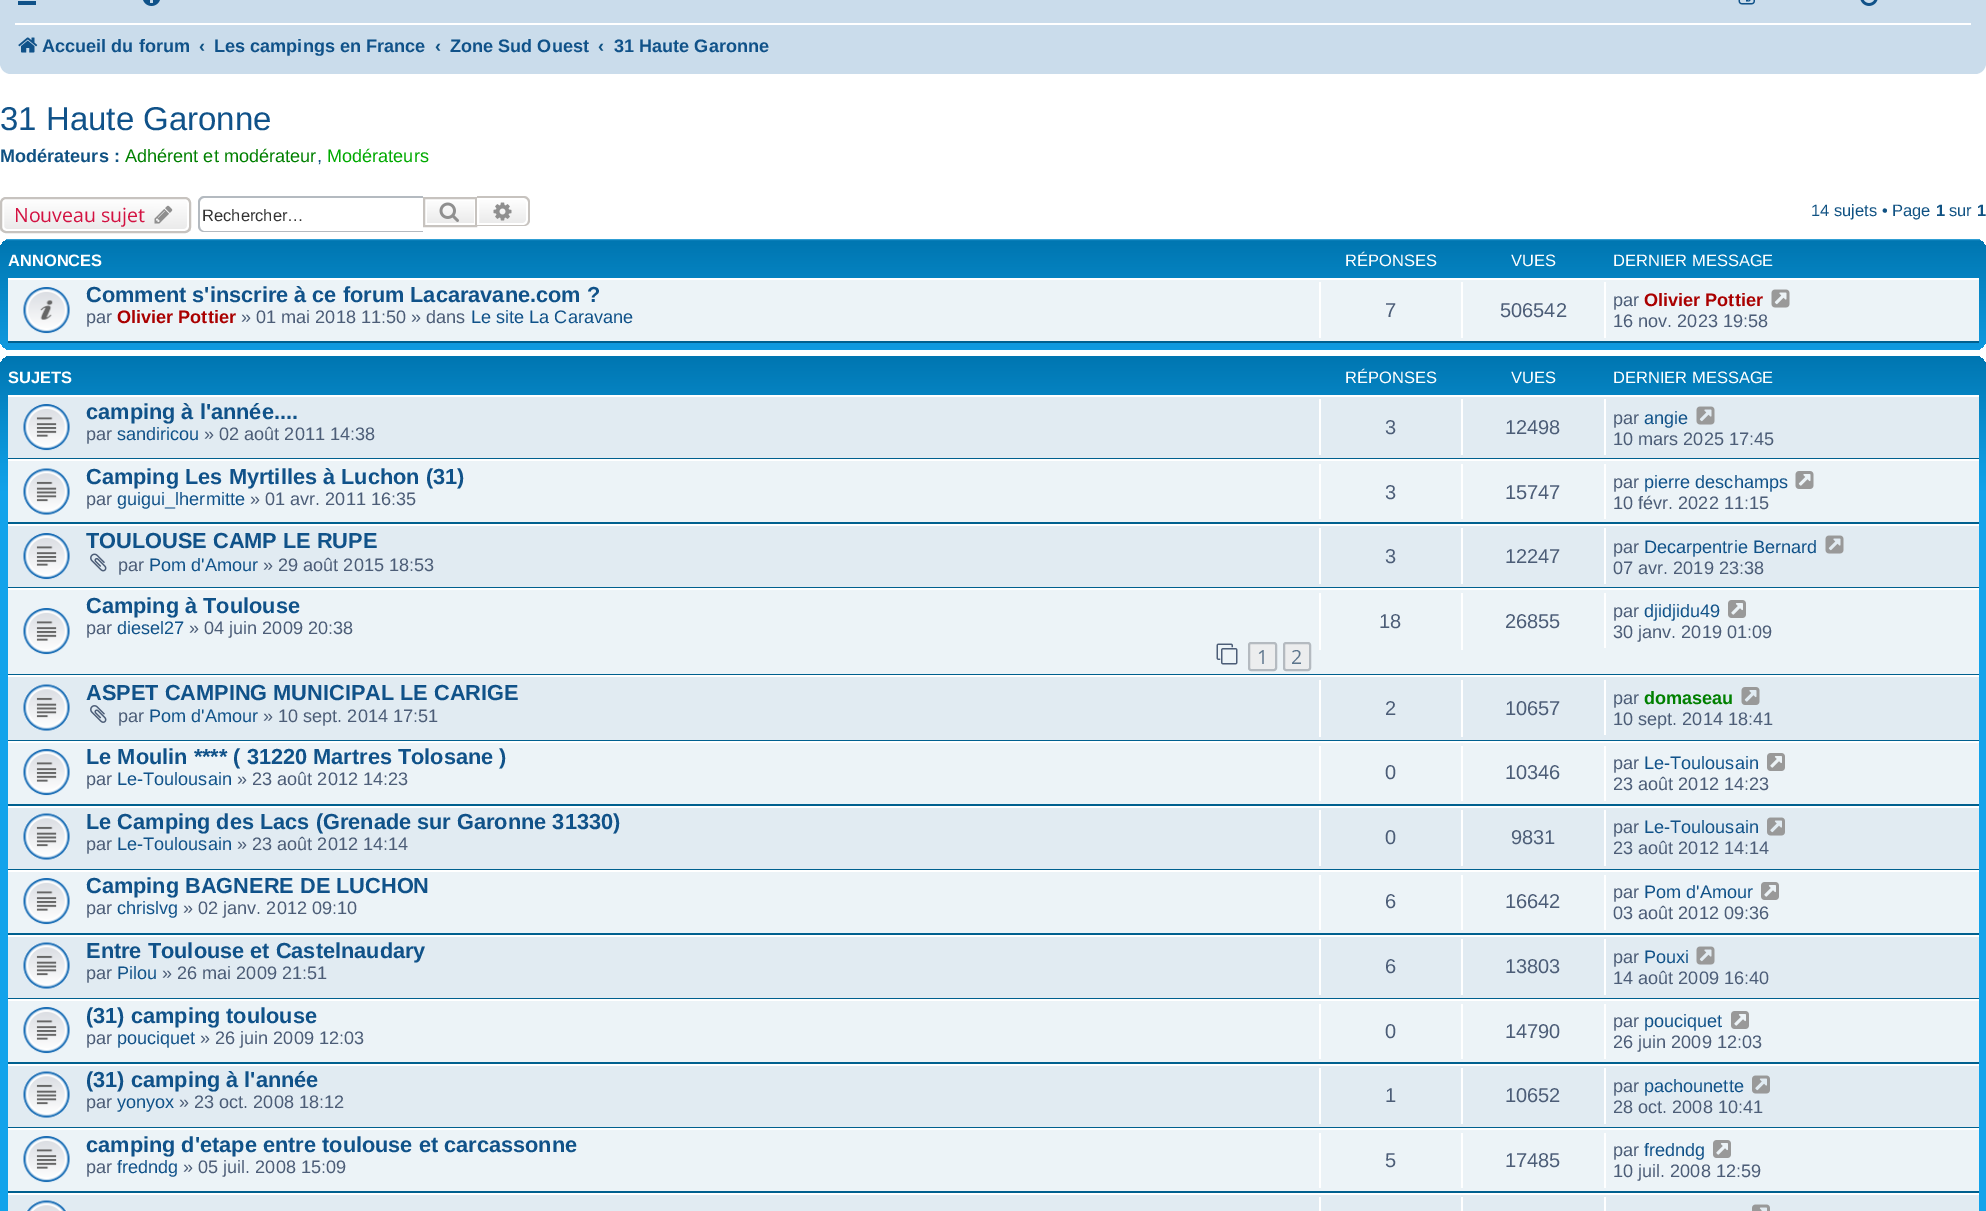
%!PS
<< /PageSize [1986 1211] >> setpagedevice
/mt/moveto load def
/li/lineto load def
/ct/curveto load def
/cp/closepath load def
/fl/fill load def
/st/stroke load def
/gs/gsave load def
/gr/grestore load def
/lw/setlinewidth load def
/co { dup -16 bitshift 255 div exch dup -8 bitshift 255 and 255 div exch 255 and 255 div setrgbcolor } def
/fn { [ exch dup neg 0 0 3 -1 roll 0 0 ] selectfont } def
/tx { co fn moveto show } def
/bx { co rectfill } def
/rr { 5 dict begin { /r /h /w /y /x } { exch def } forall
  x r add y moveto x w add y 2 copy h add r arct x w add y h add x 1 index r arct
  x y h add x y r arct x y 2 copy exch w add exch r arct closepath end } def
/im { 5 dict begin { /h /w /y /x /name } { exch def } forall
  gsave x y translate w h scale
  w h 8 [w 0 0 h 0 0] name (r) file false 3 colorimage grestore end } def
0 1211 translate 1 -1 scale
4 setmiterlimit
0 0 1986 1211 16#FFFFFF bx
16#CADCEB co
0 -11 1986 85 11 rr fl
18 1 18 4 16#105289 bx
(media/1.raw) 143 0 17 6 im
(media/2.raw) 1738 0 17 5 im
(media/3.raw) 1860 0 18 6 im
15 23 1956 2 16#FFFFFF bx
(media/4.raw) 18 37 20 16 im
gs
0 197 191 36 6 rr clip newpath
gs 0 198 mt 191 198 li 191 231 li 0 231 li cp clip newpath
<< /ShadingType 2 /ColorSpace /DeviceRGB /Coords [95 198 95 231] /Extend [true true] /Function << /FunctionType 2 /Domain [0 1] /C0 [1 1 1] /C1 [.914 .914 .914] /N 1 >> >> shfill gr
gr
2 lw
3 199 185 31 4 rr st
16#C7C3BF co
1 198 189 34 5 rr st
(media/5.raw) 154 205 19 19 im
16#B4BAC0 co
204 196 mt 423 196 li 423 232 li 204 232 li 201 232 198 230 198 226 ct 198 202 li 198 199 201 196 204 196 ct cp 204 198 mt 423 198 li 423 231 li 204 231 li 202 231 200 229 200 226 ct 200 202 li 200 200 202 198 204 198 ct cp eofill
gs 427 201 mt 474 201 li 474 223 li 427 223 li cp clip newpath
<< /ShadingType 2 /ColorSpace /DeviceRGB /Coords [450 198 450 225] /Extend [true true] /Function << /FunctionType 2 /Domain [0 1] /C0 [1 1 1] /C1 [.914 .914 .914] /N 1 >> >> shfill gr
16#C7C3BF co
424 198 52 28 rectstroke
(media/6.raw) 439 202 20 20 im
gs 478 199 mt 523 199 li 525 199 527 201 527 203 ct 527 220 li 527 222 525 224 523 224 ct 478 224 li cp clip newpath
<< /ShadingType 2 /ColorSpace /DeviceRGB /Coords [503 198 503 225] /Extend [true true] /Function << /FunctionType 2 /Domain [0 1] /C0 [1 1 1] /C1 [.914 .914 .914] /N 1 >> >> shfill gr
16#FFFFFF co
478 199 mt 523 199 li 525 199 527 201 527 203 ct 527 220 li 527 222 525 224 523 224 ct 478 224 li cp st
16#C7C3BF co
477 196 mt 524 196 li 527 196 530 199 530 202 ct 530 220 li 530 224 527 226 524 226 ct 477 226 li cp 477 198 mt 524 198 li 526 198 528 200 528 202 ct 528 220 li 528 223 526 225 524 225 ct 477 225 li cp eofill
(media/7.raw) 493 202 19 19 im
gs 0 239 1986 111 11 rr clip newpath
<< /ShadingType 2 /ColorSpace /DeviceRGB /Coords [993 238 993 376] /Extend [true true] /Function << /FunctionType 3 /Domain [0 1] /Functions [<< /FunctionType 2 /Domain [0 1] /C0 [.416 .808 1] /C1 [0 .463 .694] /N 1 >> << /FunctionType 2 /Domain [0 1] /C0 [0 .463 .694] /C1 [.071 .639 .922] /N 1 >>] /Bounds [.02] /Encode [0 1 0 1] >> >> shfill gr
8 280 1971 61 16#ECF3F7 bx
8 278 1971 2 16#FFFFFF bx
8 341 1971 2 16#00608F bx
(media/8.raw) 23 287 47 47 im
1319 282 2 56 16#FFFFFF bx
1461 282 2 56 16#FFFFFF bx
1604 282 2 56 16#FFFFFF bx
(media/9.raw) 1771 289 19 19 im
gs 0 356 1986 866 11 rr clip newpath
<< /ShadingType 2 /ColorSpace /DeviceRGB /Coords [993 355 993 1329] /Extend [true true] /Function << /FunctionType 3 /Domain [0 1] /Functions [<< /FunctionType 2 /Domain [0 1] /C0 [0 .463 .694] /C1 [.071 .639 .922] /N 1 >> << /FunctionType 2 /Domain [0 1] /C0 [.071 .639 .922] /C1 [.071 .639 .922] /N 1 >>] /Bounds [.14] /Encode [0 1 0 1] >> >> shfill gr
8 397 1971 61 16#E1EBF2 bx
8 395 1971 2 16#FFFFFF bx
8 458 1971 1 16#00608F bx
(media/10.raw) 23 404 47 47 im
1319 399 2 56 16#FFFFFF bx
1461 399 2 56 16#FFFFFF bx
1604 399 2 56 16#FFFFFF bx
(media/11.raw) 1696 406 19 19 im
8 461 1971 61 16#ECF3F7 bx
8 459 1971 2 16#FFFFFF bx
8 522 1971 2 16#00608F bx
(media/12.raw) 23 468 47 47 im
1319 464 2 55 16#FFFFFF bx
1461 464 2 55 16#FFFFFF bx
1604 464 2 55 16#FFFFFF bx
(media/13.raw) 1795 471 19 18 im
8 526 1971 61 16#E1EBF2 bx
8 524 1971 2 16#FFFFFF bx
8 587 1971 1 16#00608F bx
(media/10.raw) 23 533 47 47 im
(media/14.raw) 90 553 17 19 im
1319 528 2 56 16#FFFFFF bx
1461 528 2 56 16#FFFFFF bx
1604 528 2 56 16#FFFFFF bx
(media/11.raw) 1825 535 19 19 im
8 590 1971 84 16#ECF3F7 bx
8 588 1971 2 16#FFFFFF bx
8 674 1971 1 16#00608F bx
(media/15.raw) 23 608 47 47 im
(media/16.raw) 1216 643 22 22 im
16#ECEDEE co
1249 643 27 27 2 rr gs fl gr
16#B4BAC0 co
st
16#ECEDEE co
1284 643 26 27 2 rr gs fl gr
16#B4BAC0 co
st
1319 593 2 57 16#FFFFFF bx
1461 593 2 57 16#FFFFFF bx
1604 593 2 55 16#FFFFFF bx
(media/17.raw) 1728 600 18 18 im
8 677 1971 63 16#E1EBF2 bx
8 675 1971 2 16#FFFFFF bx
8 740 1971 1 16#00608F bx
(media/18.raw) 23 684 47 47 im
(media/19.raw) 90 705 17 18 im
1319 680 2 57 16#FFFFFF bx
1461 680 2 57 16#FFFFFF bx
1604 680 2 55 16#FFFFFF bx
(media/20.raw) 1741 687 19 18 im
8 743 1971 61 16#ECF3F7 bx
8 741 1971 2 16#FFFFFF bx
8 804 1971 2 16#00608F bx
(media/15.raw) 23 749 47 47 im
1319 746 2 55 16#FFFFFF bx
1461 746 2 55 16#FFFFFF bx
1604 746 2 55 16#FFFFFF bx
(media/17.raw) 1767 753 18 18 im
8 808 1971 61 16#E1EBF2 bx
8 806 1971 2 16#FFFFFF bx
8 869 1971 1 16#00608F bx
(media/18.raw) 23 813 47 47 im
1319 810 2 56 16#FFFFFF bx
1461 810 2 56 16#FFFFFF bx
1604 810 2 56 16#FFFFFF bx
(media/21.raw) 1767 817 18 19 im
8 872 1971 61 16#ECF3F7 bx
8 870 1971 2 16#FFFFFF bx
8 933 1971 2 16#00608F bx
(media/15.raw) 23 878 47 47 im
1319 875 2 55 16#FFFFFF bx
1461 875 2 55 16#FFFFFF bx
1604 875 2 55 16#FFFFFF bx
(media/17.raw) 1761 882 18 18 im
8 937 1971 61 16#E1EBF2 bx
8 935 1971 2 16#FFFFFF bx
8 998 1971 1 16#00608F bx
(media/18.raw) 23 942 47 47 im
1319 939 2 56 16#FFFFFF bx
1461 939 2 56 16#FFFFFF bx
1604 939 2 56 16#FFFFFF bx
(media/11.raw) 1696 946 19 19 im
8 1001 1971 61 16#ECF3F7 bx
8 999 1971 2 16#FFFFFF bx
8 1062 1971 2 16#00608F bx
(media/15.raw) 23 1007 47 47 im
1319 1004 2 55 16#FFFFFF bx
1461 1004 2 55 16#FFFFFF bx
1604 1004 2 55 16#FFFFFF bx
(media/17.raw) 1731 1011 18 18 im
8 1066 1971 61 16#E1EBF2 bx
8 1064 1971 2 16#FFFFFF bx
8 1127 1971 1 16#00608F bx
(media/18.raw) 23 1071 47 47 im
1319 1068 2 56 16#FFFFFF bx
1461 1068 2 56 16#FFFFFF bx
1604 1068 2 56 16#FFFFFF bx
(media/21.raw) 1752 1075 18 19 im
8 1130 1971 61 16#ECF3F7 bx
8 1128 1971 2 16#FFFFFF bx
8 1191 1971 2 16#00608F bx
(media/15.raw) 23 1136 47 47 im
1319 1133 2 55 16#FFFFFF bx
1461 1133 2 55 16#FFFFFF bx
1604 1133 2 55 16#FFFFFF bx
(media/17.raw) 1713 1140 18 18 im
8 1195 1971 16 16#E1EBF2 bx
8 1193 1971 2 16#FFFFFF bx
(media/22.raw) 26 1200 41 11 im
1319 1197 2 14 16#FFFFFF bx
1461 1197 2 14 16#FFFFFF bx
1604 1197 2 14 16#FFFFFF bx
(media/23.raw) 1752 1204 18 7 im
(Accueil du forum) 42 52 /LiberationSans-Bold 18.1 16#105289 tx
(‹) 199 52 /LiberationSans-Bold 18.1 16#105283 tx
(Les campings en France) 214 52 /LiberationSans-Bold 18.1 16#105289 tx
(‹) 435 52 /LiberationSans-Bold 18.1 16#105283 tx
(Zone Sud Ouest) 450 52 /LiberationSans-Bold 18.1 16#105289 tx
(‹) 598 52 /LiberationSans-Bold 18.1 16#105283 tx
(31 Haute Garonne) 614 52 /LiberationSans-Bold 18.1 16#105289 tx
(31 Haute Garonne) 0 130 /LiberationSans-Regular 33 16#105289 tx
(Modérateurs :) 0 162 /LiberationSans-Bold 18.1 16#105283 tx
(Adhérent et modérateur) 125 162 /LiberationSans-Regular 18.1 16#008000 tx
(,) 317 162 /LiberationSans-Regular 18.1 16#105283 tx
(Modérateurs) 327 162 /LiberationSans-Regular 18.1 16#00AA00 tx
(Nouveau sujet) 14 222 /OpenSans-Regular 19.5 16#D31141 tx
(Rechercher…) 202 221 /LiberationSans-Regular 16.5 16#333333 tx
(14 sujets • Page) 1811 216 /LiberationSans-Regular 16.5 16#105283 tx
(1) 1936 216 /LiberationSans-Bold 16.5 16#105283 tx
(sur) 1949 216 /LiberationSans-Regular 16.5 16#105283 tx
(1) 1977 216 /LiberationSans-Bold 16.5 16#105283 tx
(ANNONCES) 8 266 /LiberationSans-Bold 16.5 16#FFFFFF tx
(RÉPONSES) 1345 266 /LiberationSans-Regular 16.5 16#FFFFFF tx
(VUES) 1511 266 /LiberationSans-Regular 16.5 16#FFFFFF tx
(DERNIER MESSAGE) 1613 266 /LiberationSans-Regular 16.5 16#FFFFFF tx
(Comment s'inscrire à ce forum Lacaravane.com ?) 86 302 /LiberationSans-Bold 21.75 16#105289 tx
(par) 86 323 /LiberationSans-Regular 18.1 16#4C5D77 tx
(Olivier Pottier) 117 323 /LiberationSans-Bold 18.1 16#AA0000 tx
(» 01 mai 2018 11:50 » dans) 241 323 /LiberationSans-Regular 18.1 16#4C5D77 tx
(Le site La Caravane) 471 323 /LiberationSans-Regular 18.1 16#105289 tx
(7) 1385 317 /LiberationSans-Regular 20 16#4C5D77 tx
(506542) 1500 317 /LiberationSans-Regular 20 16#4C5D77 tx
(par) 1613 306 /LiberationSans-Regular 18.1 16#4C5D77 tx
(Olivier Pottier) 1644 306 /LiberationSans-Bold 18.1 16#AA0000 tx
(16 nov. 2023 19:58) 1613 327 /LiberationSans-Regular 18.1 16#4C5D77 tx
(SUJETS) 8 383 /LiberationSans-Bold 16.5 16#FFFFFF tx
(RÉPONSES) 1345 383 /LiberationSans-Regular 16.5 16#FFFFFF tx
(VUES) 1511 383 /LiberationSans-Regular 16.5 16#FFFFFF tx
(DERNIER MESSAGE) 1613 383 /LiberationSans-Regular 16.5 16#FFFFFF tx
(camping à l'année....) 86 419 /LiberationSans-Bold 21.75 16#105289 tx
(par) 86 440 /LiberationSans-Regular 18.1 16#4C5D77 tx
(sandiricou) 117 440 /LiberationSans-Regular 18.1 16#105289 tx
(» 02 août 2011 14:38) 204 440 /LiberationSans-Regular 18.1 16#4C5D77 tx
(3) 1385 434 /LiberationSans-Regular 20 16#4C5D77 tx
(12498) 1505 434 /LiberationSans-Regular 20 16#4C5D77 tx
(par) 1613 424 /LiberationSans-Regular 18.1 16#4C5D77 tx
(angie) 1644 424 /LiberationSans-Regular 18.1 16#105289 tx
(10 mars 2025 17:45) 1613 445 /LiberationSans-Regular 18.1 16#4C5D77 tx
(Camping Les Myrtilles à Luchon \(31\)) 86 484 /LiberationSans-Bold 21.75 16#105289 tx
(par) 86 505 /LiberationSans-Regular 18.1 16#4C5D77 tx
(guigui_lhermitte) 117 505 /LiberationSans-Regular 18.1 16#105289 tx
(» 01 avr. 2011 16:35) 250 505 /LiberationSans-Regular 18.1 16#4C5D77 tx
(3) 1385 499 /LiberationSans-Regular 20 16#4C5D77 tx
(15747) 1505 499 /LiberationSans-Regular 20 16#4C5D77 tx
(par) 1613 488 /LiberationSans-Regular 18.1 16#4C5D77 tx
(pierre deschamps) 1644 488 /LiberationSans-Regular 18.1 16#105289 tx
(10 févr. 2022 11:15) 1613 509 /LiberationSans-Regular 18.1 16#4C5D77 tx
(TOULOUSE CAMP LE RUPE) 86 548 /LiberationSans-Bold 21.75 16#105289 tx
(par) 118 571 /LiberationSans-Regular 18.1 16#4C5D77 tx
(Pom d'Amour) 149 571 /LiberationSans-Regular 18.1 16#105289 tx
(» 29 août 2015 18:53) 263 571 /LiberationSans-Regular 18.1 16#4C5D77 tx
(3) 1385 563 /LiberationSans-Regular 20 16#4C5D77 tx
(12247) 1505 563 /LiberationSans-Regular 20 16#4C5D77 tx
(par) 1613 553 /LiberationSans-Regular 18.1 16#4C5D77 tx
(Decarpentrie Bernard) 1644 553 /LiberationSans-Regular 18.1 16#105289 tx
(07 avr. 2019 23:38) 1613 574 /LiberationSans-Regular 18.1 16#4C5D77 tx
(Camping à Toulouse) 86 613 /LiberationSans-Bold 21.75 16#105289 tx
(par) 86 634 /LiberationSans-Regular 18.1 16#4C5D77 tx
(diesel27) 117 634 /LiberationSans-Regular 18.1 16#105289 tx
(» 04 juin 2009 20:38) 189 634 /LiberationSans-Regular 18.1 16#4C5D77 tx
(1) 1257 664 /OpenSans-Regular 19.5 16#5C758C tx
(2) 1291 664 /OpenSans-Regular 19.5 16#5C758C tx
(18) 1379 628 /LiberationSans-Regular 20 16#4C5D77 tx
(26855) 1505 628 /LiberationSans-Regular 20 16#4C5D77 tx
(par) 1613 617 /LiberationSans-Regular 18.1 16#4C5D77 tx
(djidjidu49) 1644 617 /LiberationSans-Regular 18.1 16#105289 tx
(30 janv. 2019 01:09) 1613 638 /LiberationSans-Regular 18.1 16#4C5D77 tx
(ASPET CAMPING MUNICIPAL LE CARIGE) 86 700 /LiberationSans-Bold 21.75 16#105289 tx
(par) 118 722 /LiberationSans-Regular 18.1 16#4C5D77 tx
(Pom d'Amour) 149 722 /LiberationSans-Regular 18.1 16#105289 tx
(» 10 sept. 2014 17:51) 263 722 /LiberationSans-Regular 18.1 16#4C5D77 tx
(2) 1385 715 /LiberationSans-Regular 20 16#4C5D77 tx
(10657) 1505 715 /LiberationSans-Regular 20 16#4C5D77 tx
(par) 1613 704 /LiberationSans-Regular 18.1 16#4C5D77 tx
(domaseau) 1644 704 /LiberationSans-Bold 18.1 16#008000 tx
(10 sept. 2014 18:41) 1613 725 /LiberationSans-Regular 18.1 16#4C5D77 tx
(Le Moulin **** \( 31220 Martres Tolosane \)) 86 764 /LiberationSans-Bold 21.75 16#105289 tx
(par) 86 785 /LiberationSans-Regular 18.1 16#4C5D77 tx
(Le-Toulousain) 117 785 /LiberationSans-Regular 18.1 16#105289 tx
(» 23 août 2012 14:23) 237 785 /LiberationSans-Regular 18.1 16#4C5D77 tx
(0) 1385 779 /LiberationSans-Regular 20 16#4C5D77 tx
(10346) 1505 779 /LiberationSans-Regular 20 16#4C5D77 tx
(par) 1613 769 /LiberationSans-Regular 18.1 16#4C5D77 tx
(Le-Toulousain) 1644 769 /LiberationSans-Regular 18.1 16#105289 tx
(23 août 2012 14:23) 1613 790 /LiberationSans-Regular 18.1 16#4C5D77 tx
(Le Camping des Lacs \(Grenade sur Garonne 31330\)) 86 829 /LiberationSans-Bold 21.75 16#105289 tx
(par) 86 850 /LiberationSans-Regular 18.1 16#4C5D77 tx
(Le-Toulousain) 117 850 /LiberationSans-Regular 18.1 16#105289 tx
(» 23 août 2012 14:14) 237 850 /LiberationSans-Regular 18.1 16#4C5D77 tx
(0) 1385 844 /LiberationSans-Regular 20 16#4C5D77 tx
(9831) 1511 844 /LiberationSans-Regular 20 16#4C5D77 tx
(par) 1613 833 /LiberationSans-Regular 18.1 16#4C5D77 tx
(Le-Toulousain) 1644 833 /LiberationSans-Regular 18.1 16#105289 tx
(23 août 2012 14:14) 1613 854 /LiberationSans-Regular 18.1 16#4C5D77 tx
(Camping BAGNERE DE LUCHON) 86 893 /LiberationSans-Bold 21.75 16#105289 tx
(par) 86 914 /LiberationSans-Regular 18.1 16#4C5D77 tx
(chrislvg) 117 914 /LiberationSans-Regular 18.1 16#105289 tx
(» 02 janv. 2012 09:10) 183 914 /LiberationSans-Regular 18.1 16#4C5D77 tx
(6) 1385 908 /LiberationSans-Regular 20 16#4C5D77 tx
(16642) 1505 908 /LiberationSans-Regular 20 16#4C5D77 tx
(par) 1613 898 /LiberationSans-Regular 18.1 16#4C5D77 tx
(Pom d'Amour) 1644 898 /LiberationSans-Regular 18.1 16#105289 tx
(03 août 2012 09:36) 1613 919 /LiberationSans-Regular 18.1 16#4C5D77 tx
(Entre Toulouse et Castelnaudary) 86 958 /LiberationSans-Bold 21.75 16#105289 tx
(par) 86 979 /LiberationSans-Regular 18.1 16#4C5D77 tx
(Pilou) 117 979 /LiberationSans-Regular 18.1 16#105289 tx
(» 26 mai 2009 21:51) 162 979 /LiberationSans-Regular 18.1 16#4C5D77 tx
(6) 1385 973 /LiberationSans-Regular 20 16#4C5D77 tx
(13803) 1505 973 /LiberationSans-Regular 20 16#4C5D77 tx
(par) 1613 963 /LiberationSans-Regular 18.1 16#4C5D77 tx
(Pouxi) 1644 963 /LiberationSans-Regular 18.1 16#105289 tx
(14 août 2009 16:40) 1613 984 /LiberationSans-Regular 18.1 16#4C5D77 tx
(\(31\) camping toulouse) 86 1023 /LiberationSans-Bold 21.75 16#105289 tx
(par) 86 1044 /LiberationSans-Regular 18.1 16#4C5D77 tx
(pouciquet) 117 1044 /LiberationSans-Regular 18.1 16#105289 tx
(» 26 juin 2009 12:03) 200 1044 /LiberationSans-Regular 18.1 16#4C5D77 tx
(0) 1385 1038 /LiberationSans-Regular 20 16#4C5D77 tx
(14790) 1505 1038 /LiberationSans-Regular 20 16#4C5D77 tx
(par) 1613 1027 /LiberationSans-Regular 18.1 16#4C5D77 tx
(pouciquet) 1644 1027 /LiberationSans-Regular 18.1 16#105289 tx
(26 juin 2009 12:03) 1613 1048 /LiberationSans-Regular 18.1 16#4C5D77 tx
(\(31\) camping à l'année) 86 1087 /LiberationSans-Bold 21.75 16#105289 tx
(par) 86 1108 /LiberationSans-Regular 18.1 16#4C5D77 tx
(yonyox) 117 1108 /LiberationSans-Regular 18.1 16#105289 tx
(» 23 oct. 2008 18:12) 179 1108 /LiberationSans-Regular 18.1 16#4C5D77 tx
(1) 1385 1102 /LiberationSans-Regular 20 16#4C5D77 tx
(10652) 1505 1102 /LiberationSans-Regular 20 16#4C5D77 tx
(par) 1613 1092 /LiberationSans-Regular 18.1 16#4C5D77 tx
(pachounette) 1644 1092 /LiberationSans-Regular 18.1 16#105289 tx
(28 oct. 2008 10:41) 1613 1113 /LiberationSans-Regular 18.1 16#4C5D77 tx
(camping d'etape entre toulouse et carcassonne) 86 1152 /LiberationSans-Bold 21.75 16#105289 tx
(par) 86 1173 /LiberationSans-Regular 18.1 16#4C5D77 tx
(fredndg) 117 1173 /LiberationSans-Regular 18.1 16#105289 tx
(» 05 juil. 2008 15:09) 183 1173 /LiberationSans-Regular 18.1 16#4C5D77 tx
(5) 1385 1167 /LiberationSans-Regular 20 16#4C5D77 tx
(17485) 1505 1167 /LiberationSans-Regular 20 16#4C5D77 tx
(par) 1613 1156 /LiberationSans-Regular 18.1 16#4C5D77 tx
(fredndg) 1644 1156 /LiberationSans-Regular 18.1 16#105289 tx
(10 juil. 2008 12:59) 1613 1177 /LiberationSans-Regular 18.1 16#4C5D77 tx
showpage
